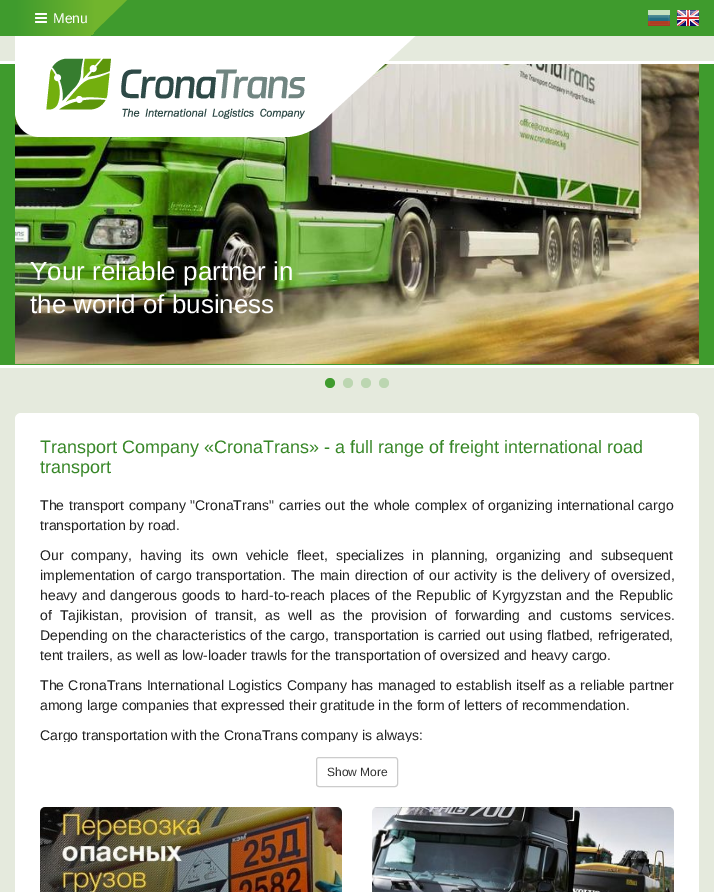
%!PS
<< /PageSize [714 892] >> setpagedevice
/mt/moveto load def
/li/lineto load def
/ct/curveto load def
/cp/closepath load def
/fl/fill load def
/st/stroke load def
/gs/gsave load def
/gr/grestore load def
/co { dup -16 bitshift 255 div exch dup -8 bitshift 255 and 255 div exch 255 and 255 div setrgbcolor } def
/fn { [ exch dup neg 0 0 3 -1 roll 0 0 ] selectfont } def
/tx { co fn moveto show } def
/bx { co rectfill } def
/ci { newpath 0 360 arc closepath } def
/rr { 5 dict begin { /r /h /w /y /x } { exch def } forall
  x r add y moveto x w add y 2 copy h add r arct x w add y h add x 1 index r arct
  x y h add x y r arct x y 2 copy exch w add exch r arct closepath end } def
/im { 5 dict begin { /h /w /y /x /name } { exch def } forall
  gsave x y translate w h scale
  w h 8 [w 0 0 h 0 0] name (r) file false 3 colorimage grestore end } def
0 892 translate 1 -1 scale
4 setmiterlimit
0 0 714 892 16#E5EADD bx
0 64 714 301 16#3F9B2D bx
0 61 714 3 16#FFFFFF bx
(media/5.raw) 15 64 684 300 im
15 36 mt 340 36 li 340 82 li 340 112.5 315.5 137 285 137 ct 40 137 li 26 137 15 126 15 112 ct cp fl
324 28 mt 424 28 li 324 120 li cp fl
0 0 714 36 16#3F9B2D bx
gs 15 0 mt 95 0 li 95 28 li 95 32.5 91.5 36 87 36 ct 18 36 li 16.5 36 15 34.5 15 33 ct cp clip newpath
<< /ShadingType 2 /ColorSpace /DeviceRGB /Coords [15 18 95 18] /Extend [true true] /Function << /FunctionType 2 /Domain [0 1] /C0 [.247 .608 .176] /C1 [.443 .71 .176] /N 1 >> >> shfill gr
(media/1.raw) 35 13 12 10 im
16#71B52D co
94 -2 mt 129 -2 li 94 32 li cp fl
(media/2.raw) 648 10 22 16 im
(media/3.raw) 677 10 22 16 im
(media/4.raw) 46 58 259 61 im
0 365 714 3 16#FFFFFF bx
16#3F9B2D co
330 383 5 ci fl
16#BCD6B1 co
348 383 5 ci fl
366 383 5 ci fl
384 383 5 ci fl
16#FFFFFF co
15 413 684 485 6 rr fl
16#CCCCCC co
316.5 757.5 81 29 2.5 rr st
(media/6.raw) 40 807 302 85 im
(media/7.raw) 372 807 302 85 im
(Menu) 53 23 /LiberationSans-Regular 14 16#FFFFFF tx
(Your reliable partner in) 30 280 /LiberationSans-Regular 26 16#FFFFFF tx
(the world of business) 30 313 /LiberationSans-Regular 26 16#FFFFFF tx
(Transport Company «CronaTrans» - a full range of freight international road) 40 453 /LiberationSans-Regular 18 16#378727 tx
(transport) 40 473 /LiberationSans-Regular 18 16#378727 tx
/LiberationSans-Regular 14 fn
16#222222 co
40 510 mt .8 0 32 (The transport company "CronaTrans" carries out the whole complex of organizing international cargo) widthshow
(transportation by road.) 40 530 /LiberationSans-Regular 14 16#222222 tx
40 560 mt 4.25 0 32 (Our company, having its own vehicle fleet, specializes in planning, organizing and subsequent) widthshow
40 580 mt 1 0 32 (implementation of cargo transportation. The main direction of our activity is the delivery of oversized,) widthshow
40 600 mt 1 0 32 (heavy and dangerous goods to hard-to-reach places of the Republic of Kyrgyzstan and the Republic) widthshow
40 620 mt 4.25 0 32 (of Tajikistan, provision of transit, as well as the provision of forwarding and customs services.) widthshow
40 640 mt .6 0 32 (Depending on the characteristics of the cargo, transportation is carried out using flatbed, refrigerated,) widthshow
(tent trailers, as well as low-loader trawls for the transportation of oversized and heavy cargo.) 40 660 /LiberationSans-Regular 14 16#222222 tx
40 690 mt .4 0 32 (The CronaTrans International Logistics Company has managed to establish itself as a reliable partner) widthshow
(among large companies that expressed their gratitude in the form of letters of recommendation.) 40 710 /LiberationSans-Regular 14 16#222222 tx
gs
40 495 634 247 rectclip
(Cargo transportation with the CronaTrans company is always:) 40 740 /LiberationSans-Regular 14 16#222222 tx
gr
(Show More) 327 776 /LiberationSans-Regular 12 16#333333 tx
showpage
